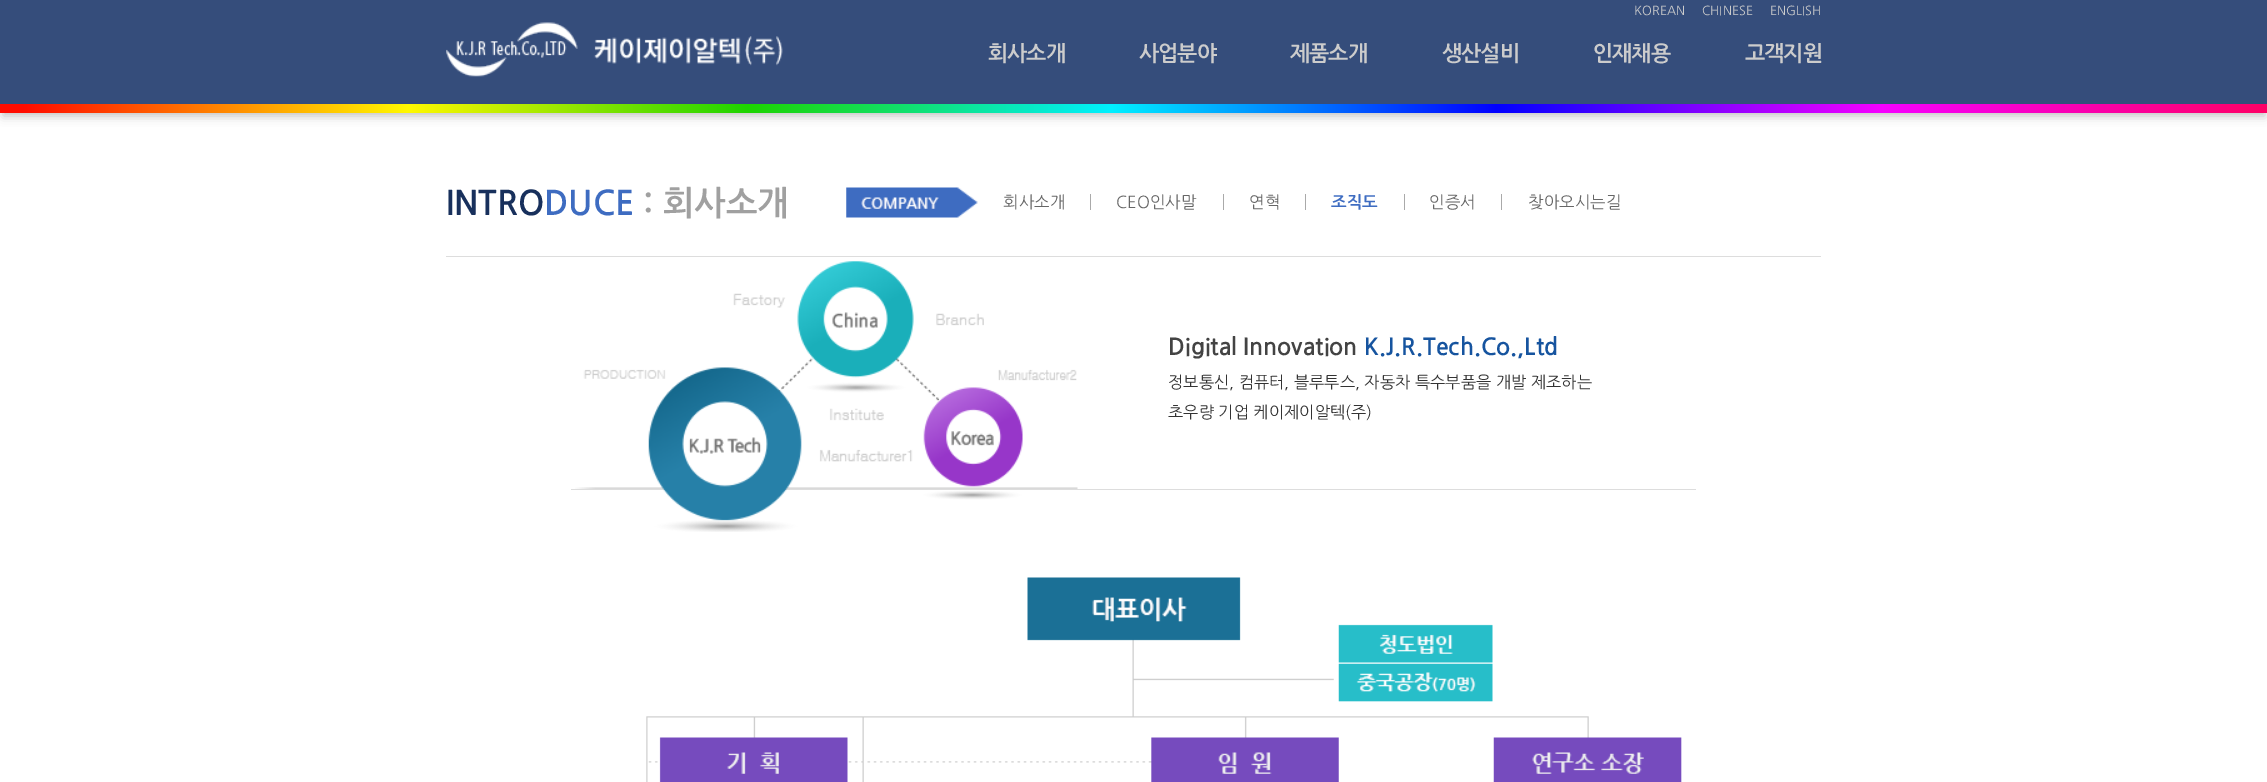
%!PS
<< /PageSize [2267 782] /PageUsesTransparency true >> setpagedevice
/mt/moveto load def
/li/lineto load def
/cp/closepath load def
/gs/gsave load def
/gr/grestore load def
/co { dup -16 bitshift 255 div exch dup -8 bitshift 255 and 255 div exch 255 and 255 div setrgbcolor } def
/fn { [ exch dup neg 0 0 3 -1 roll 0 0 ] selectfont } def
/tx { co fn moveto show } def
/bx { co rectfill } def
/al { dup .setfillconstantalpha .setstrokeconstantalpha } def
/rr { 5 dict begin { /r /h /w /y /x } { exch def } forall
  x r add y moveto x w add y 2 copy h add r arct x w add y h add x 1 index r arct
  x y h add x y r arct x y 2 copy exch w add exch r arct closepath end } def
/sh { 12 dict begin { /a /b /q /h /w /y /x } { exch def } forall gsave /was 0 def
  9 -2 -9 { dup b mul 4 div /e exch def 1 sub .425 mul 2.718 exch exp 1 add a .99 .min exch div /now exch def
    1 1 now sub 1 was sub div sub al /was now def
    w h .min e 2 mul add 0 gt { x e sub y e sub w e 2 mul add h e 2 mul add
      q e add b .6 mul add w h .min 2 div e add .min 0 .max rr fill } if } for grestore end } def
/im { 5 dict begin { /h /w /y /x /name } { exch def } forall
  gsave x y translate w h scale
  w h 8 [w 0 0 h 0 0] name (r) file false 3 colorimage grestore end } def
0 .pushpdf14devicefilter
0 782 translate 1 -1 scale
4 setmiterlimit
0 0 2267 782 16#FFFFFF bx
16#C0C0C0 co
3 9 2262 107 0 5 1 sh
gs 0 104 mt 2267 104 li 2267 113 li 0 113 li cp clip newpath
<< /ShadingType 2 /ColorSpace /DeviceRGB /Coords [0 56 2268 56] /Extend [true true] /Function << /FunctionType 3 /Domain [0 1] /Functions [<< /FunctionType 2 /Domain [0 1] /C0 [1 .047 0] /C1 [1 .047 0] /N 1 >> << /FunctionType 2 /Domain [0 1] /C0 [1 .047 0] /C1 [1 .973 0] /N 1 >> << /FunctionType 2 /Domain [0 1] /C0 [1 .973 0] /C1 [.114 .831 0] /N 1 >> << /FunctionType 2 /Domain [0 1] /C0 [.114 .831 0] /C1 [0 .941 1] /N 1 >> << /FunctionType 2 /Domain [0 1] /C0 [0 .941 1] /C1 [.004 0 1] /N 1 >> << /FunctionType 2 /Domain [0 1] /C0 [.004 0 1] /C1 [.965 0 1] /N 1 >> << /FunctionType 2 /Domain [0 1] /C0 [.965 0 1] /C1 [1 0 .396] /N 1 >>] /Bounds [.01 .18 .33 .49 .66 .83] /Encode [0 1 0 1 0 1 0 1 0 1 0 1 0 1] >> >> shfill gr
0 0 2267 104 16#354D7B bx
(media/1.raw) 446 22 337 55 im
446 256 1375 1 16#DDDDDD bx
(media/2.raw) 846 187 132 31 im
1090 194 1 16 16#AAAAAA bx
1223 194 1 16 16#AAAAAA bx
1305 194 1 16 16#AAAAAA bx
1404 194 1 16 16#AAAAAA bx
1501 194 1 16 16#AAAAAA bx
571 489 1125 1 16#DDDDDD bx
(media/3.raw) 575 261 503 271 im
(media/4.raw) 646 577 1036 205 im
(KOREAN) 1634 15 /NanumGothic-Regular 12.5 16#CCCCCC tx
(CHINESE) 1702 15 /NanumGothic-Regular 12.5 16#CCCCCC tx
(ENGLISH) 1770 15 /NanumGothic-Regular 12.5 16#CCCCCC tx
/NanumGothic-Bold 21.5 fn
988 61 mt -1 0 (회사소개) ashow
1139 61 mt -1 0 (사업분야) ashow
1290 61 mt -1 0 (제품소개) ashow
1442 61 mt -1 0 (생산설비) ashow
1593 61 mt -1 0 (인재채용) ashow
1745 61 mt -1 0 (고객지원) ashow
(INTRO) 446 215 /NanumGothic-Bold 33.5 16#18305C tx
(DUCE) 544 215 /NanumGothic-Bold 33.5 16#3E6CC1 tx
(: 회사소개) 643 215 /NanumGothic-Bold 33.5 16#A0A0A0 tx
(회사소개) 1003 208 /NanumGothic-Regular 16.5 16#666666 tx
(CEO인사말) 1116 208 /NanumGothic-Regular 16.5 16#666666 tx
(연혁) 1249 208 /NanumGothic-Regular 16.5 16#666666 tx
(조직도) 1331 208 /NanumGothic-Bold 16.5 16#3E6CC1 tx
(인증서) 1429 208 /NanumGothic-Regular 16.5 16#666666 tx
(찾아오시는길) 1528 208 /NanumGothic-Regular 16.5 16#666666 tx
(Digital Innovation) 1168 355 /NanumGothic-Bold 23.25 16#434343 tx
(K.J.R.Tech.Co.,Ltd) 1364 355 /NanumGothic-Bold 23.25 16#16549F tx
(정보통신, 컴퓨터, 블루투스, 자동차 특수부품을 개발 제조하는) 1168 388 /NanumGothic-Regular 16.25 16#333333 tx
(초우량 기업 케이제이알텍\(주\)) 1168 418 /NanumGothic-Regular 16.25 16#333333 tx
.poppdf14devicefilter showpage
